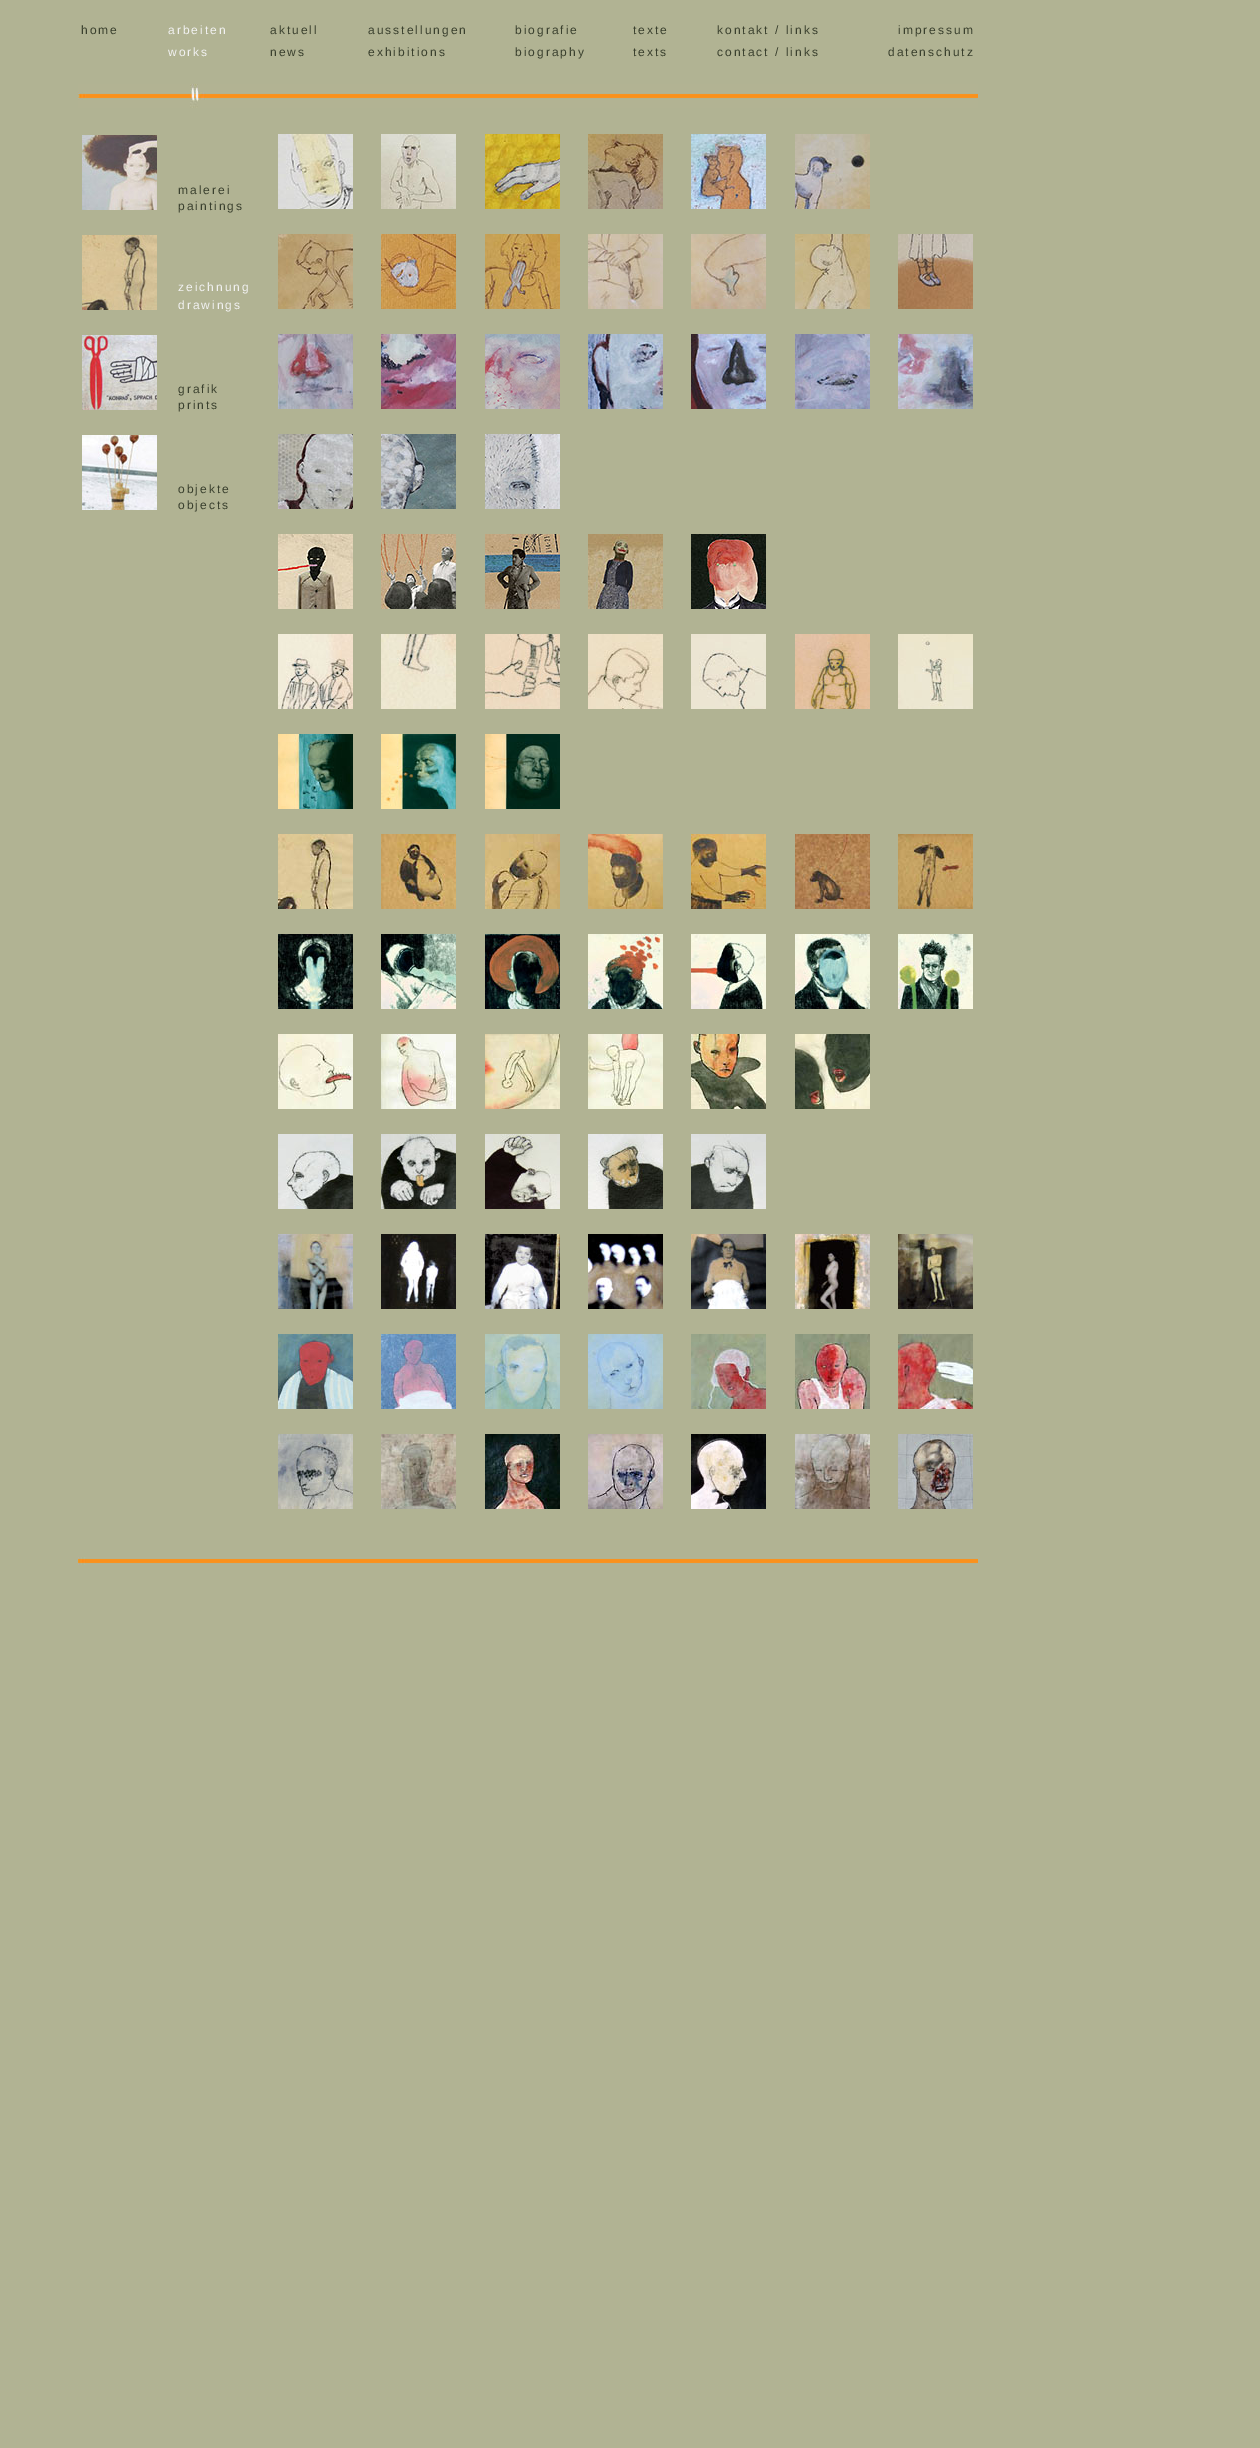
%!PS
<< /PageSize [1260 2448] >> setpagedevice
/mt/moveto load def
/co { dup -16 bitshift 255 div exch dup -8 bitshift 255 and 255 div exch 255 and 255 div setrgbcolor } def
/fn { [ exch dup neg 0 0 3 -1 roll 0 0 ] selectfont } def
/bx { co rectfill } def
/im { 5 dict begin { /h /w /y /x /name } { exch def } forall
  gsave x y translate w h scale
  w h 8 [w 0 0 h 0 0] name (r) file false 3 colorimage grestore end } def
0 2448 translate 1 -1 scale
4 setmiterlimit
0 0 1260 2448 16#B1B393 bx
(media/1.raw) 78 84 900 24 im
(media/2.raw) 82 135 75 75 im
(media/3.raw) 82 235 75 75 im
(media/4.raw) 82 335 75 75 im
(media/5.raw) 82 435 75 75 im
(media/6.raw) 278 134 75 75 im
(media/7.raw) 381 134 75 75 im
(media/8.raw) 485 134 75 75 im
(media/9.raw) 588 134 75 75 im
(media/10.raw) 691 134 75 75 im
(media/11.raw) 795 134 75 75 im
(media/12.raw) 278 234 75 75 im
(media/13.raw) 381 234 75 75 im
(media/14.raw) 485 234 75 75 im
(media/15.raw) 588 234 75 75 im
(media/16.raw) 691 234 75 75 im
(media/17.raw) 795 234 75 75 im
(media/18.raw) 898 234 75 75 im
(media/19.raw) 278 334 75 75 im
(media/20.raw) 381 334 75 75 im
(media/21.raw) 485 334 75 75 im
(media/22.raw) 588 334 75 75 im
(media/23.raw) 691 334 75 75 im
(media/24.raw) 795 334 75 75 im
(media/25.raw) 898 334 75 75 im
(media/26.raw) 278 434 75 75 im
(media/27.raw) 381 434 75 75 im
(media/28.raw) 485 434 75 75 im
(media/29.raw) 278 534 75 75 im
(media/30.raw) 381 534 75 75 im
(media/31.raw) 485 534 75 75 im
(media/32.raw) 588 534 75 75 im
(media/33.raw) 691 534 75 75 im
(media/34.raw) 278 634 75 75 im
(media/35.raw) 381 634 75 75 im
(media/36.raw) 485 634 75 75 im
(media/37.raw) 588 634 75 75 im
(media/38.raw) 691 634 75 75 im
(media/39.raw) 795 634 75 75 im
(media/40.raw) 898 634 75 75 im
(media/41.raw) 278 734 75 75 im
(media/42.raw) 381 734 75 75 im
(media/43.raw) 485 734 75 75 im
(media/44.raw) 278 834 75 75 im
(media/45.raw) 381 834 75 75 im
(media/46.raw) 485 834 75 75 im
(media/47.raw) 588 834 75 75 im
(media/48.raw) 691 834 75 75 im
(media/49.raw) 795 834 75 75 im
(media/50.raw) 898 834 75 75 im
(media/51.raw) 278 934 75 75 im
(media/52.raw) 381 934 75 75 im
(media/53.raw) 485 934 75 75 im
(media/54.raw) 588 934 75 75 im
(media/55.raw) 691 934 75 75 im
(media/56.raw) 795 934 75 75 im
(media/57.raw) 898 934 75 75 im
(media/58.raw) 278 1034 75 75 im
(media/59.raw) 381 1034 75 75 im
(media/60.raw) 485 1034 75 75 im
(media/61.raw) 588 1034 75 75 im
(media/62.raw) 691 1034 75 75 im
(media/63.raw) 795 1034 75 75 im
(media/64.raw) 278 1134 75 75 im
(media/65.raw) 381 1134 75 75 im
(media/66.raw) 485 1134 75 75 im
(media/67.raw) 588 1134 75 75 im
(media/68.raw) 691 1134 75 75 im
(media/69.raw) 278 1234 75 75 im
(media/70.raw) 381 1234 75 75 im
(media/71.raw) 485 1234 75 75 im
(media/72.raw) 588 1234 75 75 im
(media/73.raw) 691 1234 75 75 im
(media/74.raw) 795 1234 75 75 im
(media/75.raw) 898 1234 75 75 im
(media/76.raw) 278 1334 75 75 im
(media/77.raw) 381 1334 75 75 im
(media/78.raw) 485 1334 75 75 im
(media/79.raw) 588 1334 75 75 im
(media/80.raw) 691 1334 75 75 im
(media/81.raw) 795 1334 75 75 im
(media/82.raw) 898 1334 75 75 im
(media/83.raw) 278 1434 75 75 im
(media/84.raw) 381 1434 75 75 im
(media/85.raw) 485 1434 75 75 im
(media/86.raw) 588 1434 75 75 im
(media/87.raw) 691 1434 75 75 im
(media/88.raw) 795 1434 75 75 im
(media/89.raw) 898 1434 75 75 im
(media/90.raw) 78 1557 900 8 im
/LiberationSans-Regular 12 fn
16#3A402E co
81 34 mt 2 0 (home) ashow
16#F2F2F2 co
168 34 mt 2 0 (arbeiten) ashow
16#3A402E co
270 34 mt 2 0 (aktuell) ashow
368 34 mt 2 0 (ausstellungen) ashow
515 34 mt 2 0 (biografie) ashow
633 34 mt 2 0 (texte) ashow
717 34 mt 2 0 (kontakt / links) ashow
898 34 mt 2 0 (impressum) ashow
16#F2F2F2 co
168 56 mt 2 0 (works) ashow
16#3A402E co
270 56 mt 2 0 (news) ashow
368 56 mt 2 0 (exhibitions) ashow
515 56 mt 2 0 (biography) ashow
633 56 mt 2 0 (texts) ashow
717 56 mt 2 0 (contact / links) ashow
888 56 mt 2 0 (datenschutz) ashow
178 194 mt 2 0 (malerei) ashow
178 210 mt 2 0 (paintings) ashow
16#F2F2F2 co
178 291 mt 2 0 (zeichnung) ashow
178 309 mt 2 0 (drawings) ashow
16#3A402E co
178 393 mt 2 0 (grafik) ashow
178 409 mt 2 0 (prints) ashow
178 493 mt 2 0 (objekte) ashow
178 509 mt 2 0 (objects) ashow
showpage
